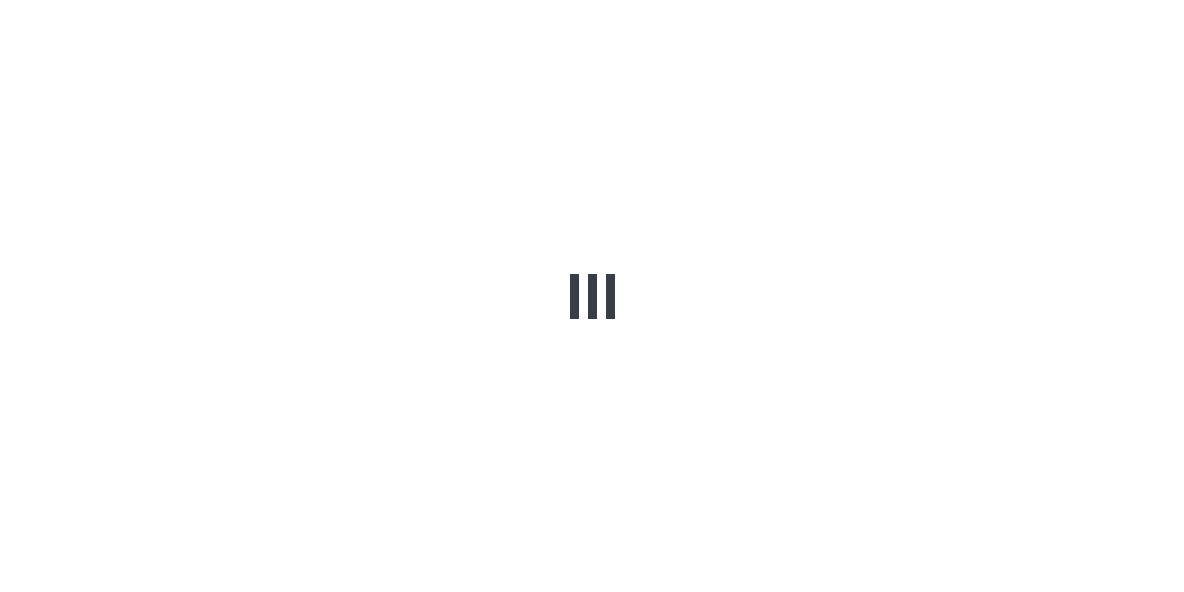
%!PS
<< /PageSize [1184 592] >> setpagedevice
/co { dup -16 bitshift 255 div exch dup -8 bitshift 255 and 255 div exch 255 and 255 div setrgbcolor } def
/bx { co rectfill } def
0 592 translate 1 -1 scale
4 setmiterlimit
0 0 1184 592 16#FFFFFF bx
606 274 9 45 16#393E46 bx
588 274 9 45 16#393E46 bx
570 274 9 45 16#393E46 bx
showpage
